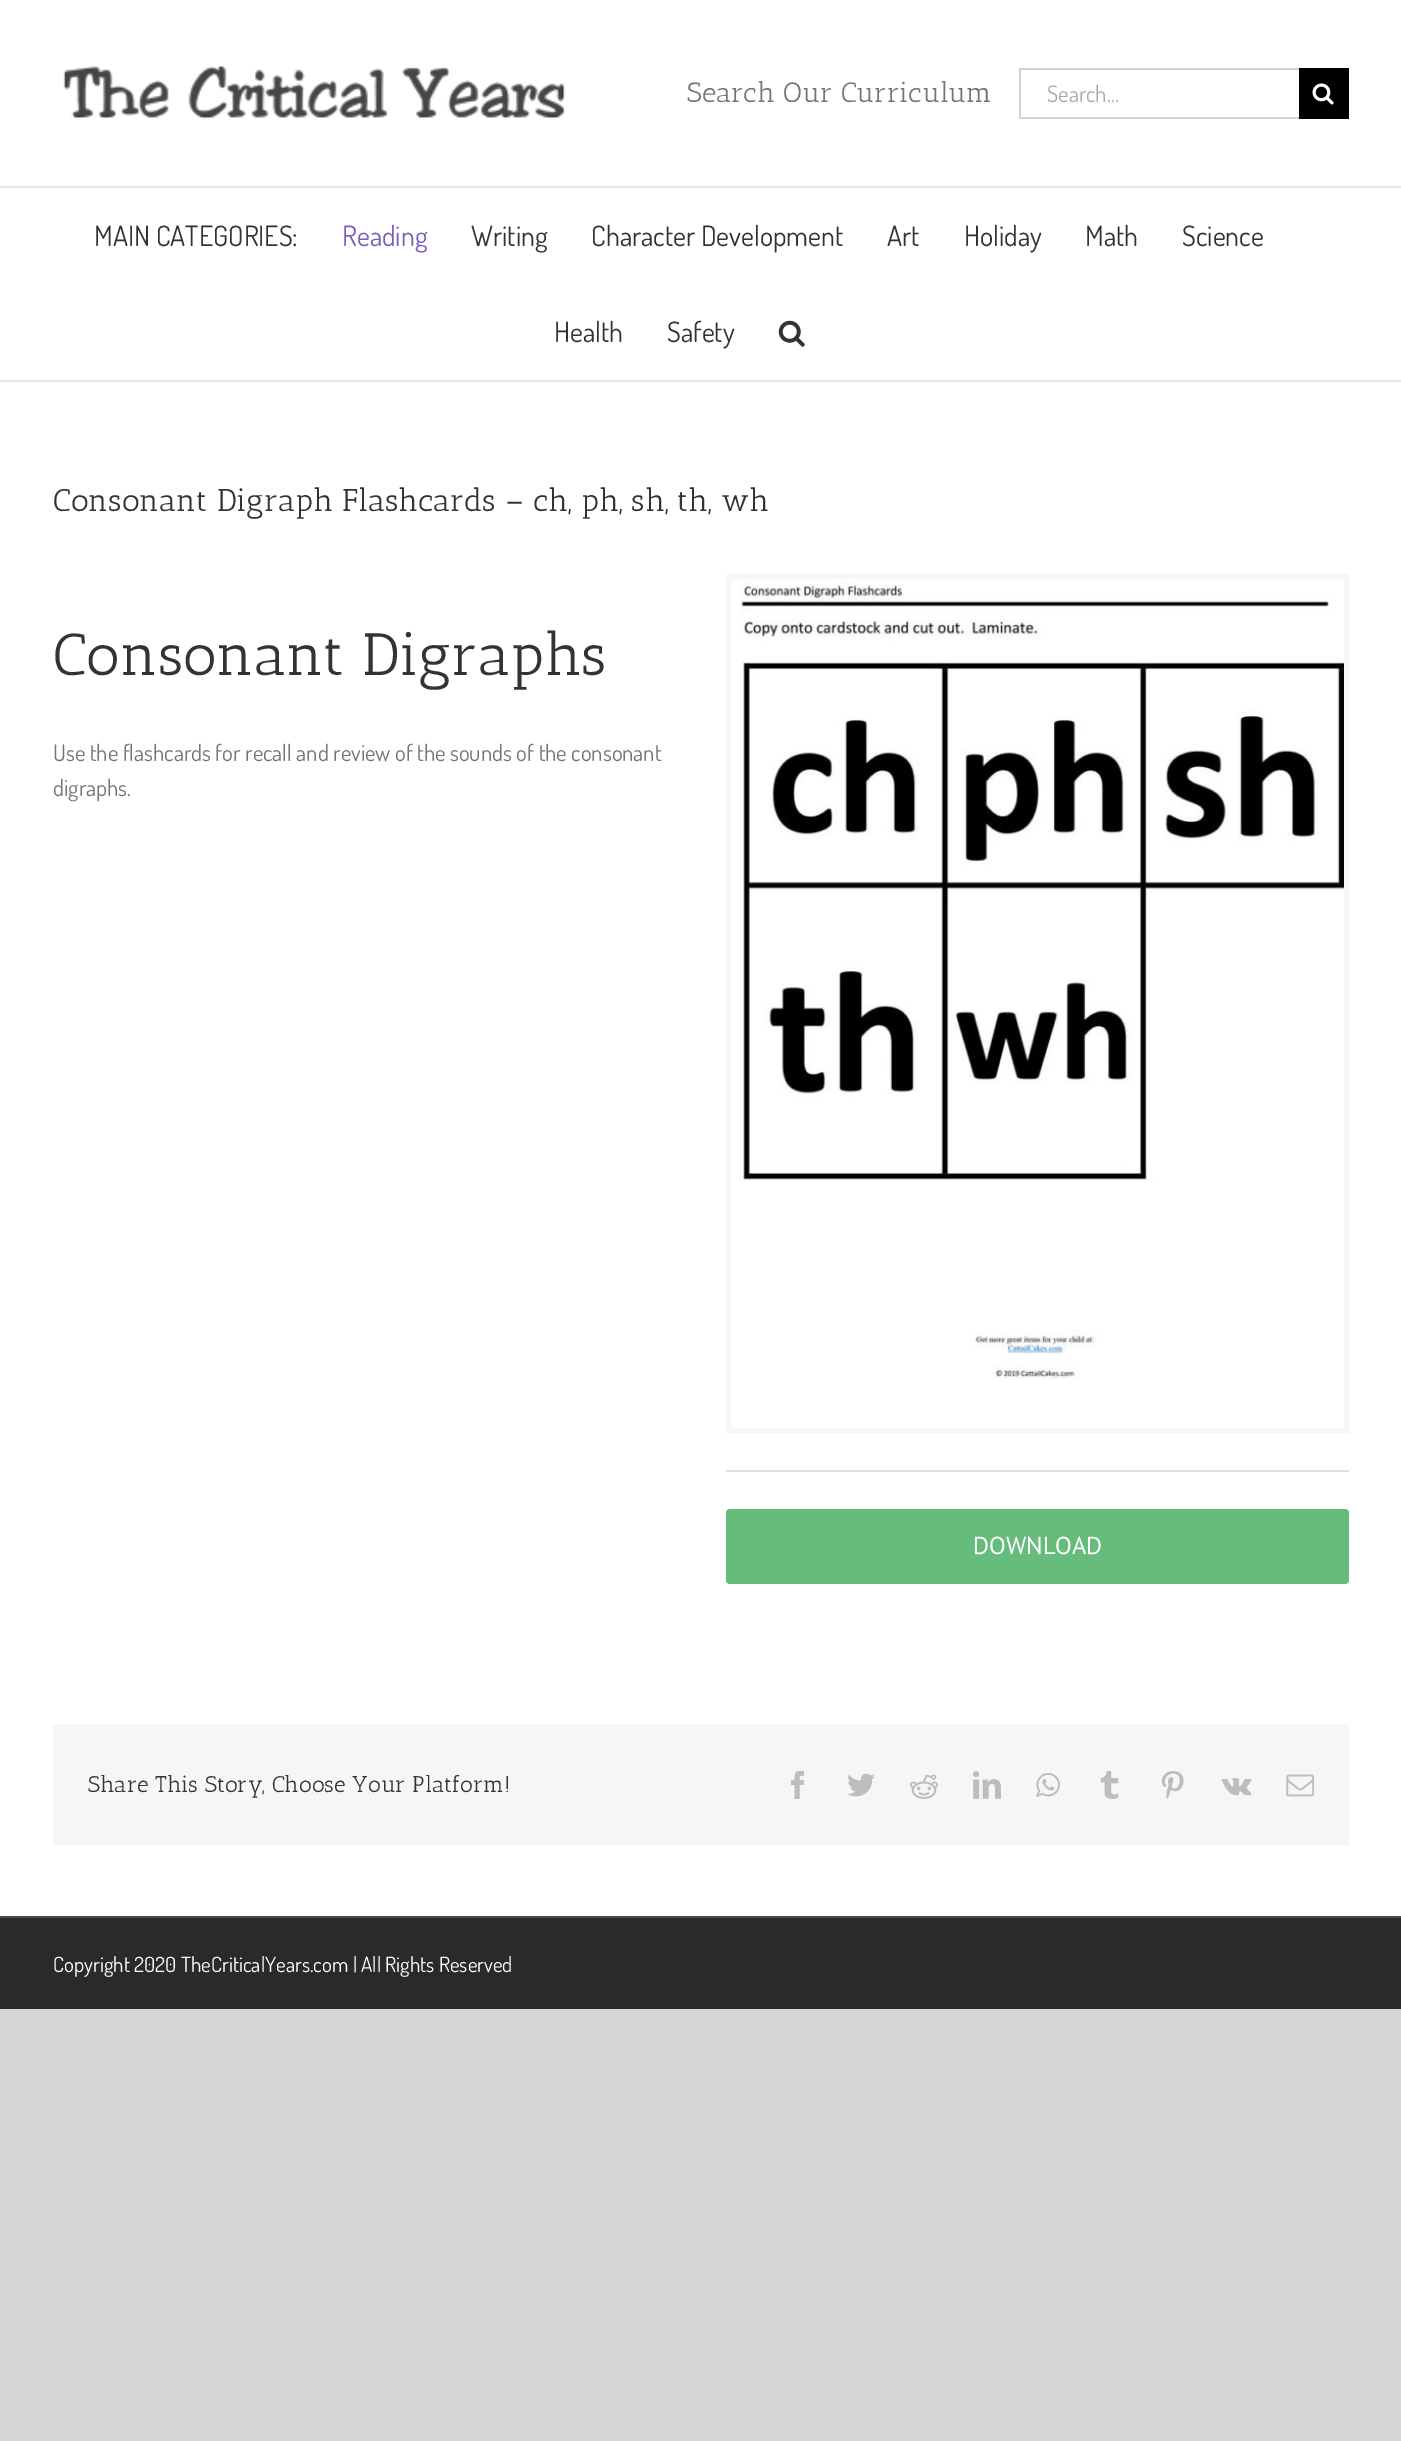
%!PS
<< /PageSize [1401 2441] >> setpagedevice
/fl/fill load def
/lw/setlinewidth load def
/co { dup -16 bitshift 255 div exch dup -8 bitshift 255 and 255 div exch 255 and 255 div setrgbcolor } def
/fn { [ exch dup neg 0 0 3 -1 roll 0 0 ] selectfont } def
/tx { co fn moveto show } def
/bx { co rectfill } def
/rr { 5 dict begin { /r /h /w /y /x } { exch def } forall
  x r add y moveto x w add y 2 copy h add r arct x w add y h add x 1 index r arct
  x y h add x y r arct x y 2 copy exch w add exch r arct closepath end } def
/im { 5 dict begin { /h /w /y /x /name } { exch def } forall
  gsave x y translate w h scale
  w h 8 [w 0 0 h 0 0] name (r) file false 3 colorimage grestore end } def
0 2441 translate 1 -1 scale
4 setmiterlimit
0 0 1401 2441 16#D7D6D6 bx
0 0 1401 1916 16#FFFFFF bx
0 186 1401 2 16#E5E5E5 bx
(media/1.raw) 63 65 503 55 im
1019 68 280 2 16#D2D2D2 bx
1019 117 280 2 16#D2D2D2 bx
1019 68 2 51 16#D2D2D2 bx
1299 68 50 51 16#000000 bx
(media/2.raw) 1312 83 22 22 im
0 380 1401 2 16#E5E5E5 bx
(media/3.raw) 778 320 27 27 im
16#F6F6F6 co
5 lw
728.5 576.5 618 854 rectstroke
(media/4.raw) 740 580 604 799 im
726 1470 623 2 16#E0DEDE bx
16#65BC7B co
726 1509 623 75 4 rr fl
53 1724 1296 122 16#F6F6F6 bx
(media/5.raw) 791 1771 14 28 im
(media/6.raw) 847 1773 28 24 im
(media/7.raw) 910 1774 28 25 im
(media/8.raw) 973 1771 28 28 im
(media/9.raw) 1036 1773 24 24 im
(media/10.raw) 1100 1771 19 28 im
(media/11.raw) 1161 1771 23 28 im
(media/12.raw) 1221 1778 31 18 im
(media/13.raw) 1286 1774 28 23 im
0 1918 1401 91 16#282A2B bx
0 1916 1401 2 16#4B4C4D bx
(Search Our Curriculum) 687 102 /AnticSlab-Regular 28 16#747474 tx
(Search...) 1047 102 /Dosis-Regular 22.75 16#AAA9A9 tx
(MAIN CATEGORIES:) 94 246 /Dosis-Regular 28 16#333333 tx
(Reading) 342 246 /Dosis-Regular 28 16#7B5DBD tx
(Writing) 471 246 /Dosis-Regular 28 16#333333 tx
(Character Development) 591 246 /Dosis-Regular 28 16#333333 tx
(Art) 887 246 /Dosis-Regular 28 16#333333 tx
(Holiday) 964 246 /Dosis-Regular 28 16#333333 tx
(Math) 1085 246 /Dosis-Regular 28 16#333333 tx
(Science) 1182 246 /Dosis-Regular 28 16#333333 tx
(Health) 554 342 /Dosis-Regular 28 16#333333 tx
(Safety) 667 342 /Dosis-Regular 28 16#333333 tx
(Consonant Digraph Flashcards – ch, ph, sh, th, wh) 53 511 /AnticSlab-Regular 31.5 16#333333 tx
(Consonant Digraphs) 53 675 /AnticSlab-Regular 59.5 16#333333 tx
(Use the flashcards for recall and review of the sounds of the consonant) 53 761 /Dosis-Regular 22.75 16#747474 tx
(digraphs.) 53 796 /Dosis-Regular 22.75 16#747474 tx
(DOWNLOAD) 973 1554 /PTSans-Regular 24.5 16#FFFFFF tx
(Share This Story, Choose Your Platform!) 88 1792 /AnticSlab-Regular 22.75 16#333333 tx
(Copyright 2020 TheCriticalYears.com | All Rights Reserved) 53 1972 /Dosis-Regular 21 16#FFFFFF tx
showpage
